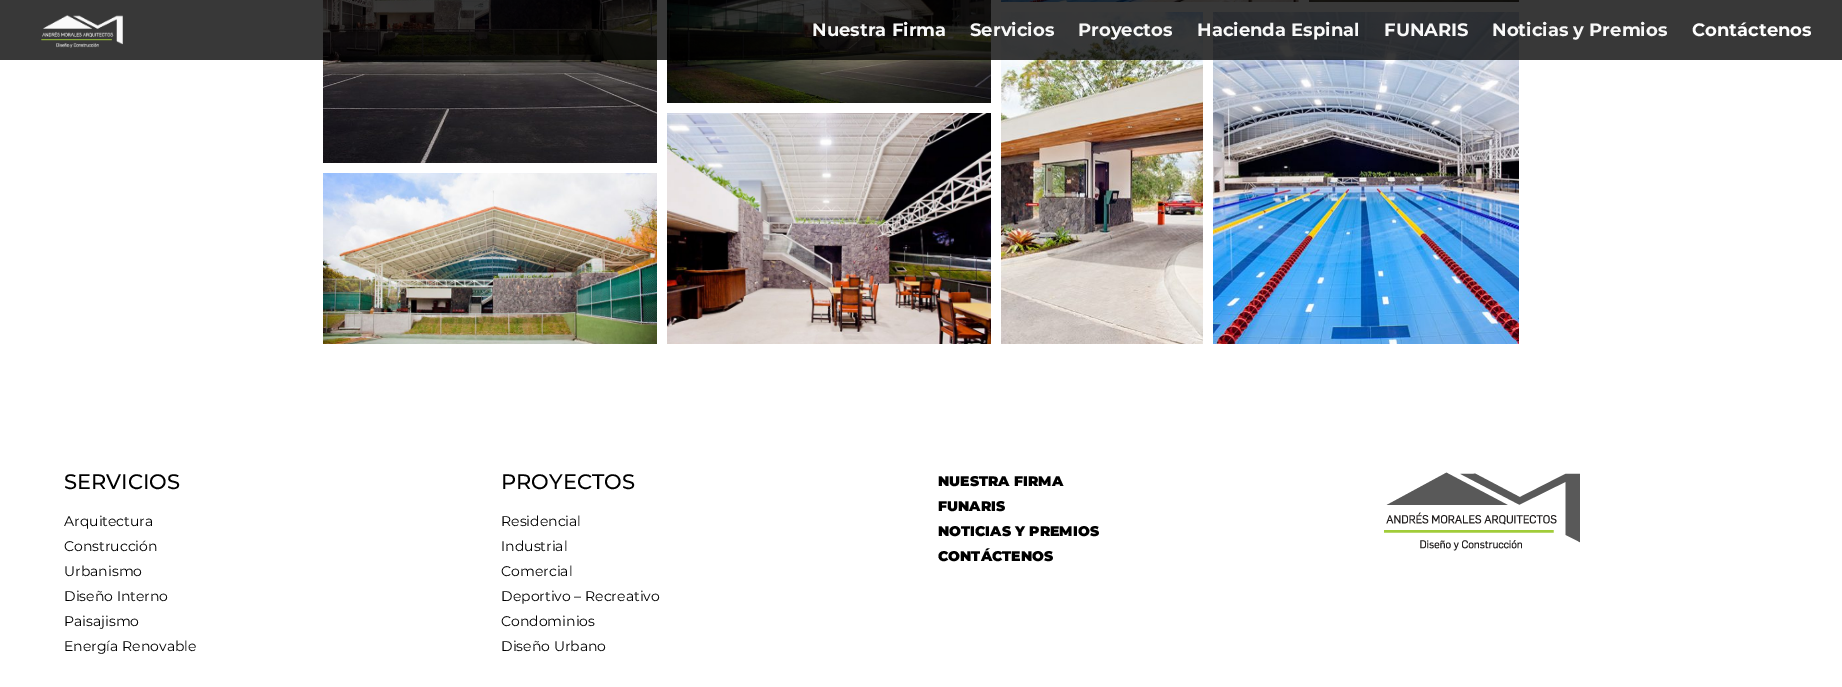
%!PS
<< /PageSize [1842 687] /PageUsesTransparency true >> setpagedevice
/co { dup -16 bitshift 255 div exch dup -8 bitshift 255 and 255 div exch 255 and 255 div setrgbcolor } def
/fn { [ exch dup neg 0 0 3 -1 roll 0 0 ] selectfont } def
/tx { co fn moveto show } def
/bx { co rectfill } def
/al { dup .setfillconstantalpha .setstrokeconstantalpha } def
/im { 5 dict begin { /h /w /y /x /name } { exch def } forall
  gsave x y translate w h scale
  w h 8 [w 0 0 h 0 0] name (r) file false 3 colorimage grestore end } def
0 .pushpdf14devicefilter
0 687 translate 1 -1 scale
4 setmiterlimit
0 0 1842 687 16#FFFFFF bx
(media/1.raw) 323 0 334 163 im
(media/2.raw) 667 0 324 103 im
(media/3.raw) 1001 0 298 2 im
(media/4.raw) 1309 0 210 2 im
(media/5.raw) 323 173 334 171 im
(media/6.raw) 667 113 324 231 im
(media/7.raw) 1001 12 202 332 im
(media/8.raw) 1213 12 306 332 im
0.78 al
0 0 1842 60 16#000000 bx
1 al
(media/9.raw) 41 15 82 33 im
(media/10.raw) 1384 472 196 79 im
(Nuestra Firma) 812 36 /Montserrat-Bold 18 16#F8F8F8 tx
(Servicios) 970 36 /Montserrat-Bold 18 16#F8F8F8 tx
(Proyectos) 1078 36 /Montserrat-Bold 18 16#F8F8F8 tx
(Hacienda Espinal) 1197 36 /Montserrat-Bold 18 16#F8F8F8 tx
(FUNARIS) 1384 36 /Montserrat-Bold 18 16#F8F8F8 tx
(Noticias y Premios) 1492 36 /Montserrat-Bold 18 16#F8F8F8 tx
(Contáctenos) 1692 36 /Montserrat-Bold 18 16#FFFFFF tx
(SERVICIOS) 64 489 /Montserrat-Medium 21 16#000000 tx
(Arquitectura) 64 526 /Montserrat-Regular 14 16#000000 tx
(Construcción) 64 551 /Montserrat-Regular 14 16#000000 tx
(Urbanismo) 64 576 /Montserrat-Regular 14 16#000000 tx
(Diseño Interno) 64 601 /Montserrat-Regular 14 16#000000 tx
(Paisajismo) 64 626 /Montserrat-Regular 14 16#000000 tx
(Energía Renovable) 64 651 /Montserrat-Regular 14 16#000000 tx
(PROYECTOS) 501 489 /Montserrat-Medium 21 16#000000 tx
(Residencial) 501 526 /Montserrat-Regular 14 16#000000 tx
(Industrial) 501 551 /Montserrat-Regular 14 16#000000 tx
(Comercial) 501 576 /Montserrat-Regular 14 16#000000 tx
(Deportivo – Recreativo) 501 601 /Montserrat-Regular 14 16#000000 tx
(Condominios) 501 626 /Montserrat-Regular 14 16#000000 tx
(Diseño Urbano) 501 651 /Montserrat-Regular 14 16#000000 tx
(NUESTRA FIRMA) 938 486 /Montserrat-Black 14 16#000000 tx
(FUNARIS) 938 511 /Montserrat-Black 14 16#000000 tx
(NOTICIAS Y PREMIOS) 938 536 /Montserrat-Black 14 16#000000 tx
(CONTÁCTENOS) 938 561 /Montserrat-Black 14 16#000000 tx
.poppdf14devicefilter showpage
